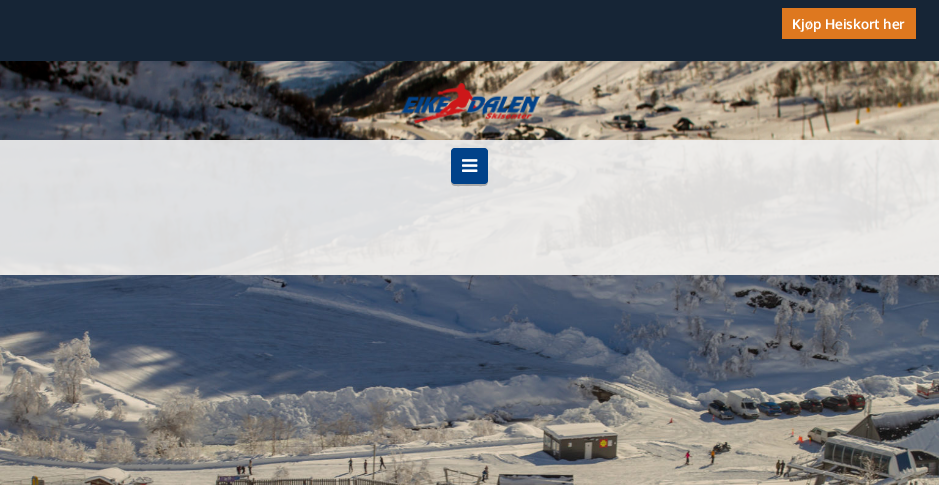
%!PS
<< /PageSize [939 485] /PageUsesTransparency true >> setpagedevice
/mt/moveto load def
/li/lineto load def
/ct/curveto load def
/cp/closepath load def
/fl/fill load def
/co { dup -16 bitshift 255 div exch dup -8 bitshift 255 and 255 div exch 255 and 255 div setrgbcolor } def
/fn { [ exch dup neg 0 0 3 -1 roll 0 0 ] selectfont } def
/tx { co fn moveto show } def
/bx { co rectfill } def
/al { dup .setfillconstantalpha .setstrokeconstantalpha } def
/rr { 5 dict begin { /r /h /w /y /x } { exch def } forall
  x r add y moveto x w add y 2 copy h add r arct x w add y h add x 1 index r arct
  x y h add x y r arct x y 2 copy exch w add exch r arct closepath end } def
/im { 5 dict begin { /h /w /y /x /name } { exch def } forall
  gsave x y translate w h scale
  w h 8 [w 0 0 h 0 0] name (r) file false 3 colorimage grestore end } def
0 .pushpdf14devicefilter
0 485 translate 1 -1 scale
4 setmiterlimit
0 0 939 485 16#FFFFFF bx
0 0 939 61 16#162536 bx
782 8 134 31 16#DE781F bx
(media/4.raw) 0 61 939 214 im
(media/1.raw) 401 83 139 41 im
0.71 al
0 140 939 135 16#EEEEEE bx
0 140 939 135 16#EEEEEE bx
0.25 al
16#000000 co
451 180 mt 451 186.5 454 186 460 186 ct 479 186 li 485 186 488 186.5 488 180 ct 488 182 486 184 484 184 ct 455 184 li 453 184 451 182 451 180 ct cp fl
1 al
16#014289 co
451 148 37 36 4 rr fl
(media/2.raw) 462 159 16 13 im
(media/3.raw) 0 275 939 210 im
(Kjøp Heiskort her) 792 29 /Oxygen-Bold 13.75 16#FFFFFF tx
.poppdf14devicefilter showpage
